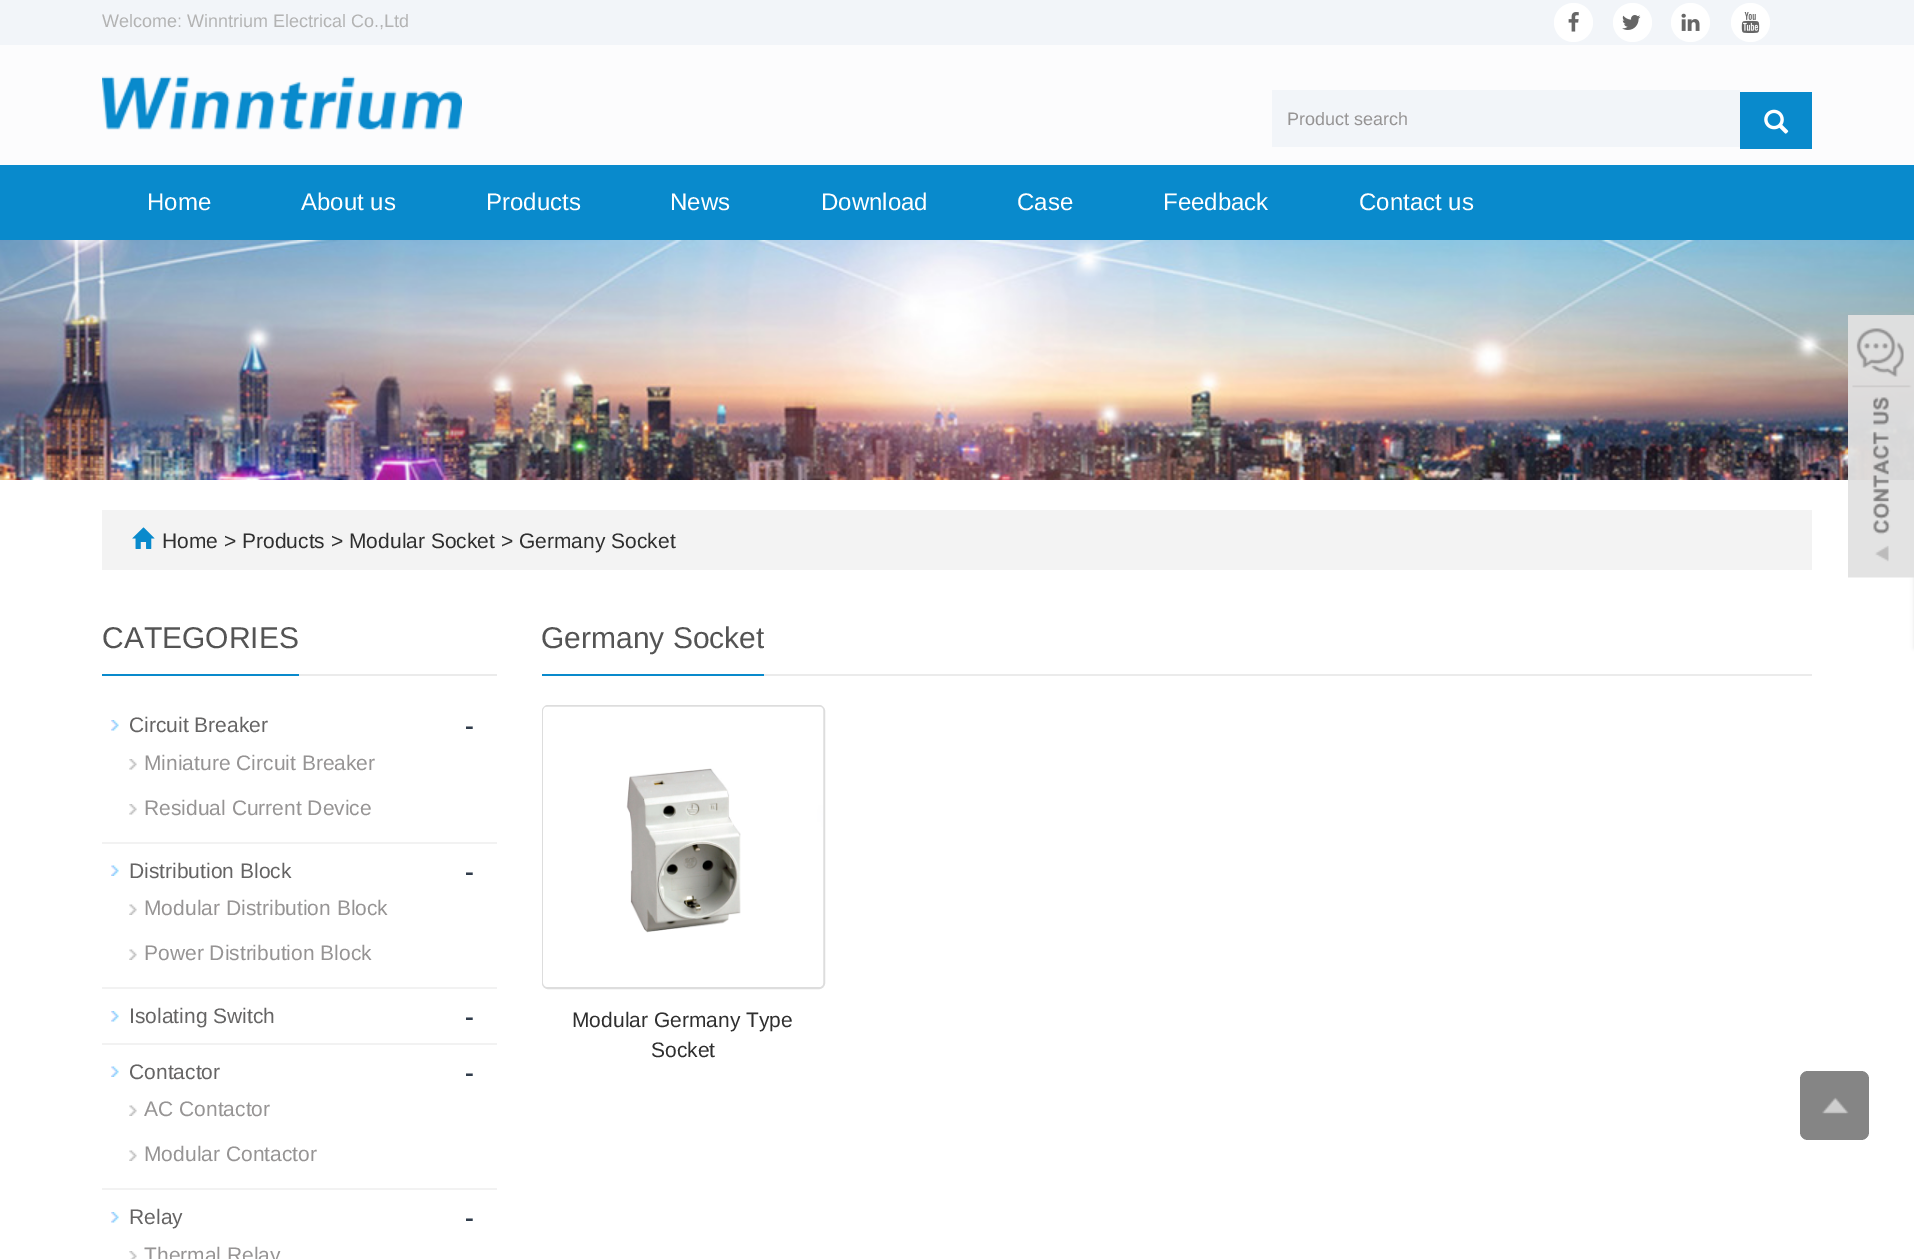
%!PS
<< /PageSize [1914 1259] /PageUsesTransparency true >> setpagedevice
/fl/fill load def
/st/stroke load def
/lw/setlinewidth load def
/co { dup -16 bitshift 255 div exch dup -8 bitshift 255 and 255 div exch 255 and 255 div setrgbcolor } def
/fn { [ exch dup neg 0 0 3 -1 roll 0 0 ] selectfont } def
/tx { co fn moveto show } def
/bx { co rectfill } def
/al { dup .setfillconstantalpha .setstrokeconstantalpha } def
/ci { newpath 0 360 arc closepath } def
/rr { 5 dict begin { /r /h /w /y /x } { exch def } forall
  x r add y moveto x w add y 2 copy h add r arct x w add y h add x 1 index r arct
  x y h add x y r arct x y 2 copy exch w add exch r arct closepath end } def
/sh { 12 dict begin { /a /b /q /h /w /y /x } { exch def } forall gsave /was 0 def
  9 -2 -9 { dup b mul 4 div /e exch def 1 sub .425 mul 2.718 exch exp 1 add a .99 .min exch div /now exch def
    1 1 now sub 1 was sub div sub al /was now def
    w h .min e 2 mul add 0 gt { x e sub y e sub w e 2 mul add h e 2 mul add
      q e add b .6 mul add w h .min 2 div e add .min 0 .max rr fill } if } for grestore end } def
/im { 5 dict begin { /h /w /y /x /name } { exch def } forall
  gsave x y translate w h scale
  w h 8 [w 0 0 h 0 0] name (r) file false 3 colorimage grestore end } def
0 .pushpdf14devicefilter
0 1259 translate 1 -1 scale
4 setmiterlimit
0 0 1914 1259 16#FFFFFF bx
0 45 1914 120 16#FCFCFD bx
0 0 1914 45 16#F2F5F9 bx
16#FFFFFF co
1573.5 22.5 19.5 ci fl
(media/1.raw) 1568 12 11 20 im
1632.5 22.5 19.5 ci fl
(media/2.raw) 1622 15 19 15 im
1690.5 22.5 19.5 ci fl
(media/3.raw) 1681 13 19 18 im
1750.5 22.5 19.5 ci fl
(media/4.raw) 1741 12 19 21 im
(media/5.raw) 102 76 360 54 im
1272 90 468 57 16#F2F5F9 bx
1740 92 72 57 16#098ACC bx
(media/6.raw) 1764 109 25 25 im
0 165 1914 75 16#098ACC bx
(media/7.raw) 0 240 1914 240 im
102 510 1710 60 16#F3F3F3 bx
(media/8.raw) 132 527 23 22 im
16#000000 co
1914 315 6 333 0 2 .1 sh
(media/9.raw) 1848 315 66 263 im
299 674 198 2 16#EBEBEB bx
102 674 197 2 16#098ACC bx
(media/10.raw) 111 720 8 11 im
102 842 395 2 16#F2F2F2 bx
(media/11.raw) 129 759 8 11 im
(media/11.raw) 129 804 8 11 im
(media/12.raw) 111 865 8 11 im
102 987 395 2 16#F2F2F2 bx
(media/13.raw) 129 904 8 11 im
(media/13.raw) 129 949 8 11 im
(media/10.raw) 111 1011 8 11 im
102 1043 395 2 16#F2F2F2 bx
(media/12.raw) 111 1066 8 11 im
102 1188 395 2 16#F2F2F2 bx
(media/13.raw) 129 1105 8 11 im
(media/13.raw) 129 1150 8 11 im
(media/10.raw) 111 1212 8 11 im
(media/14.raw) 129 1251 8 8 im
764 674 1048 2 16#EBEBEB bx
542 674 222 2 16#098ACC bx
16#DDDDDD co
2 lw
543 706 281 282 5 rr st
(media/15.raw) 543 706 281 281 im
16#858585 co
1800 1071 69 69 8 rr fl
(media/16.raw) 1822 1097 27 17 im
(Welcome: Winntrium Electrical Co.,Ltd) 102 27 /LiberationSans-Regular 18 16#B3B3B3 tx
(Product search) 1287 125 /LiberationSans-Regular 18 16#969494 tx
(Home) 147 210 /LiberationSans-Regular 24 16#FFFFFF tx
(About us) 301 210 /LiberationSans-Regular 24 16#FFFFFF tx
(Products) 486 210 /LiberationSans-Regular 24 16#FFFFFF tx
(News) 670 210 /LiberationSans-Regular 24 16#FFFFFF tx
(Download) 821 210 /LiberationSans-Regular 24 16#FFFFFF tx
(Case) 1017 210 /LiberationSans-Regular 24 16#FFFFFF tx
(Feedback) 1163 210 /LiberationSans-Regular 24 16#FFFFFF tx
(Contact us) 1359 210 /LiberationSans-Regular 24 16#FFFFFF tx
(Home) 162 548 /LiberationSans-Regular 21 16#2F2F2F tx
(>) 224 548 /LiberationSans-Regular 21 16#2F2F2F tx
(Products) 242 548 /LiberationSans-Regular 21 16#2F2F2F tx
(>) 331 548 /LiberationSans-Regular 21 16#2F2F2F tx
(Modular Socket) 349 548 /LiberationSans-Regular 21 16#2F2F2F tx
(>) 501 548 /LiberationSans-Regular 21 16#2F2F2F tx
(Germany Socket) 519 548 /LiberationSans-Regular 21 16#2F2F2F tx
(CATEGORIES) 102 648 /LiberationSans-Regular 30 16#545454 tx
(Circuit Breaker) 129 732 /LiberationSans-Regular 21 16#656464 tx
(-) 465 735 /OpenSans-SemiBold 27 16#303C4B tx
(Miniature Circuit Breaker) 144 770 /LiberationSans-Regular 21 16#969494 tx
(Residual Current Device) 144 815 /LiberationSans-Regular 21 16#969494 tx
(Distribution Block) 129 878 /LiberationSans-Regular 21 16#656464 tx
(-) 465 881 /OpenSans-SemiBold 27 16#303C4B tx
(Modular Distribution Block) 144 915 /LiberationSans-Regular 21 16#969494 tx
(Power Distribution Block) 144 960 /LiberationSans-Regular 21 16#969494 tx
(Isolating Switch) 129 1023 /LiberationSans-Regular 21 16#656464 tx
(-) 465 1026 /OpenSans-SemiBold 27 16#303C4B tx
(Contactor) 129 1079 /LiberationSans-Regular 21 16#656464 tx
(-) 465 1082 /OpenSans-SemiBold 27 16#303C4B tx
(AC Contactor) 144 1116 /LiberationSans-Regular 21 16#969494 tx
(Modular Contactor) 144 1161 /LiberationSans-Regular 21 16#969494 tx
(Relay) 129 1224 /LiberationSans-Regular 21 16#656464 tx
(-) 465 1227 /OpenSans-SemiBold 27 16#303C4B tx
(Thermal Relay) 144 1262 /LiberationSans-Regular 21 16#969494 tx
(Germany Socket) 541 648 /LiberationSans-Regular 30 16#545454 tx
(Modular Germany Type) 572 1027 /LiberationSans-Regular 21 16#2F2F2F tx
(Socket) 651 1057 /LiberationSans-Regular 21 16#2F2F2F tx
.poppdf14devicefilter showpage
